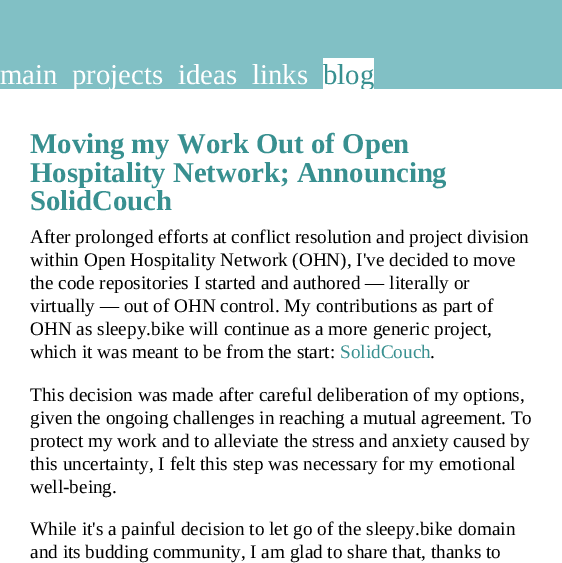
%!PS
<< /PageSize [562 563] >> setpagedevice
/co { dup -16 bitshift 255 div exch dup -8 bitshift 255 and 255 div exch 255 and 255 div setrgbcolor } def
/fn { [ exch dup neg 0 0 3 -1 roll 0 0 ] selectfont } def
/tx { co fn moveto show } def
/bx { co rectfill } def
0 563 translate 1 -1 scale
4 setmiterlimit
0 0 562 563 16#81C0C5 bx
323 58 51 31 16#FFFFFF bx
(main) 0 84 /LiberationSerif-Regular 28.75 16#FFFFFF tx
(projects) 72 84 /LiberationSerif-Regular 28.75 16#FFFFFF tx
(ideas) 178 84 /LiberationSerif-Regular 28.75 16#FFFFFF tx
(links) 252 84 /LiberationSerif-Regular 28.75 16#FFFFFF tx
(blog) 323 84 /LiberationSerif-Regular 28.75 16#389090 tx
0 89 562 474 16#FFFFFF bx
(Moving my Work Out of Open) 30 153 /LiberationSerif-Bold 28.75 16#389090 tx
(Hospitality Network; Announcing) 30 182 /LiberationSerif-Bold 28.75 16#389090 tx
(SolidCouch) 30 210 /LiberationSerif-Bold 28.75 16#389090 tx
(After prolonged efforts at conflict resolution and project division) 30 243 /LiberationSerif-Regular 19.2 16#000000 tx
(within Open Hospitality Network \(OHN\), I've decided to move) 30 266 /LiberationSerif-Regular 19.2 16#000000 tx
(the code repositories I started and authored — literally or) 30 289 /LiberationSerif-Regular 19.2 16#000000 tx
(virtually — out of OHN control. My contributions as part of) 30 312 /LiberationSerif-Regular 19.2 16#000000 tx
(OHN as sleepy.bike will continue as a more generic project,) 30 335 /LiberationSerif-Regular 19.2 16#000000 tx
(which it was meant to be from the start:) 30 358 /LiberationSerif-Regular 19.2 16#000000 tx
(SolidCouch) 340 358 /LiberationSerif-Regular 19.2 16#389090 tx
(.) 430 358 /LiberationSerif-Regular 19.2 16#000000 tx
(This decision was made after careful deliberation of my options,) 30 401 /LiberationSerif-Regular 19.2 16#000000 tx
(given the ongoing challenges in reaching a mutual agreement. To) 30 424 /LiberationSerif-Regular 19.2 16#000000 tx
(protect my work and to alleviate the stress and anxiety caused by) 30 447 /LiberationSerif-Regular 19.2 16#000000 tx
(this uncertainty, I felt this step was necessary for my emotional) 30 470 /LiberationSerif-Regular 19.2 16#000000 tx
(well-being.) 30 493 /LiberationSerif-Regular 19.2 16#000000 tx
(While it's a painful decision to let go of the sleepy.bike domain) 30 535 /LiberationSerif-Regular 19.2 16#000000 tx
(and its budding community, I am glad to share that, thanks to) 30 558 /LiberationSerif-Regular 19.2 16#000000 tx
showpage
